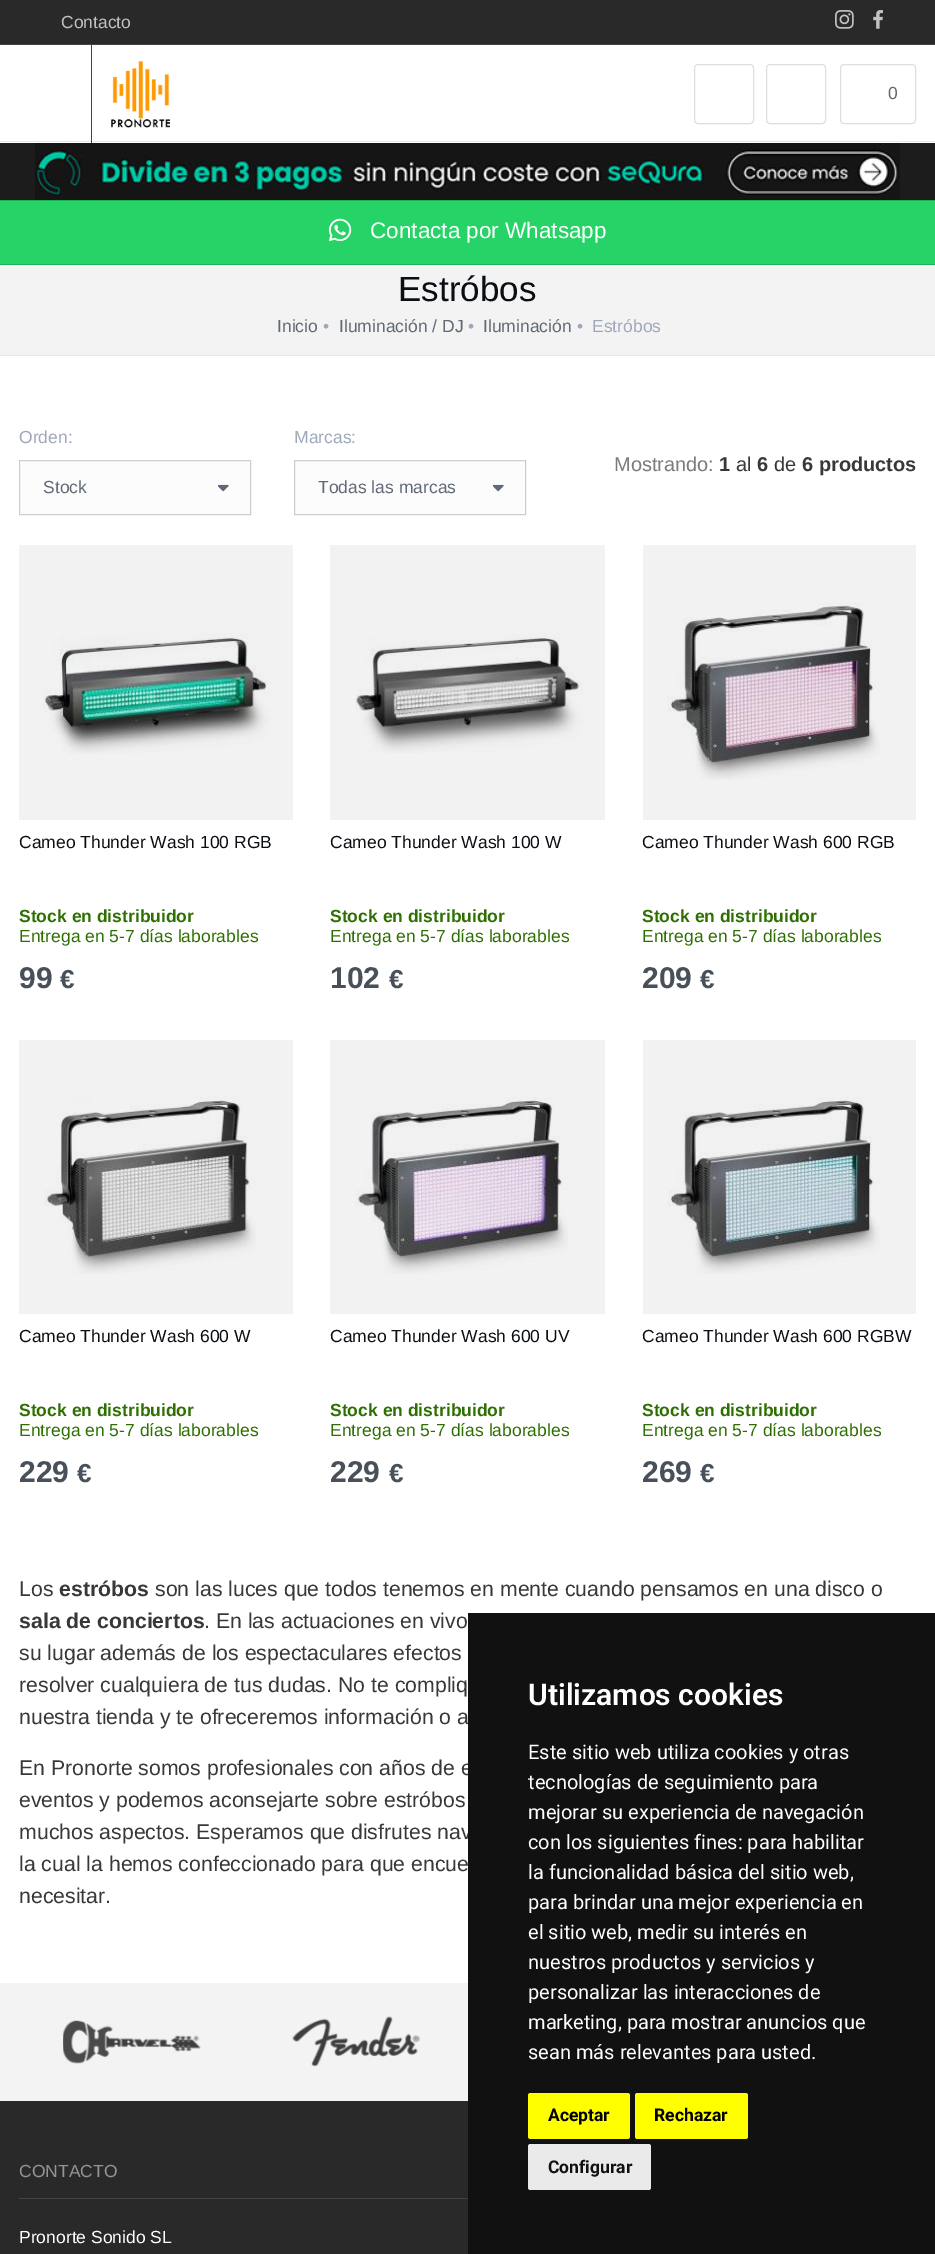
%!PS
<< /PageSize [935 2254] >> setpagedevice
/fl/fill load def
/st/stroke load def
/co { dup -16 bitshift 255 div exch dup -8 bitshift 255 and 255 div exch 255 and 255 div setrgbcolor } def
/fn { [ exch dup neg 0 0 3 -1 roll 0 0 ] selectfont } def
/tx { co fn moveto show } def
/bx { co rectfill } def
/rr { 5 dict begin { /r /h /w /y /x } { exch def } forall
  x r add y moveto x w add y 2 copy h add r arct x w add y h add x 1 index r arct
  x y h add x y r arct x y 2 copy exch w add exch r arct closepath end } def
/im { 5 dict begin { /h /w /y /x /name } { exch def } forall
  gsave x y translate w h scale
  w h 8 [w 0 0 h 0 0] name (r) file false 3 colorimage grestore end } def
0 2254 translate 1 -1 scale
4 setmiterlimit
0 0 935 2254 16#FFFFFF bx
643 1040 273 274 16#F2F2F2 bx
330 1040 275 274 16#F2F2F2 bx
19 1040 274 274 16#F2F2F2 bx
643 545 273 275 16#F2F2F2 bx
330 545 275 275 16#F2F2F2 bx
19 545 274 275 16#F2F2F2 bx
0 0 935 44 16#292929 bx
0 44 935 1 16#444444 bx
(media/1.raw) 835 10 19 19 im
(media/2.raw) 873 10 10 19 im
0 141 935 1 16#E1E7EC bx
91 45 1 98 16#444444 bx
(media/3.raw) 111 61 59 67 im
16#E0DFDE co
694.5 64.5 59 59 3.5 rr st
766.5 64.5 59 59 3.5 rr st
840.5 64.5 75 59 3.5 rr st
0 143 935 57 16#1C1C1C bx
(media/4.raw) 35 143 865 57 im
0 201 935 63 16#25D366 bx
0 200 935 1 16#1AB052 bx
0 264 935 1 16#1AB052 bx
(media/5.raw) 328 218 24 24 im
0 265 935 90 16#F3F3F3 bx
0 355 935 1 16#E1E7EC bx
20 461 230 53 16#FCFCFC bx
(media/6.raw) 218 484 11 8 im
16#C9CFD5 co
19.5 460.5 231 54 rectstroke
295 461 230 53 16#FCFCFC bx
(media/6.raw) 493 484 11 8 im
16#C9CFD5 co
294.5 460.5 231 54 rectstroke
(media/7.raw) 43 633 228 121 im
(media/8.raw) 355 633 228 120 im
(media/9.raw) 667 602 213 178 im
(media/10.raw) 43 1096 213 178 im
(media/11.raw) 355 1097 213 177 im
(media/12.raw) 667 1097 213 177 im
0 1983 468 118 16#F3F3F3 bx
(media/13.raw) 63 2020 138 44 im
(media/14.raw) 292 2016 128 50 im
0 2101 468 153 16#292929 bx
19 2198 449 1 16#434343 bx
(Contacto) 61 28 /LiberationSans-Regular 17.5 16#C2C2C2 tx
(0) 888 99 /LiberationSans-Regular 17.5 16#606975 tx
(Contacta por Whatsapp) 370 238 /LiberationSans-Regular 22.5 16#FFFFFF tx
(Estróbos) 398 301 /LiberationSans-Regular 35 16#0B0F13 tx
(Inicio) 277 332 /LiberationSans-Regular 17.5 16#606975 tx
(•) 323 332 /LiberationSans-Regular 17.5 16#9DA9B9 tx
(Iluminación / DJ) 339 332 /LiberationSans-Regular 17.5 16#606975 tx
(•) 468 332 /LiberationSans-Regular 17.5 16#9DA9B9 tx
(Iluminación) 483 332 /LiberationSans-Regular 17.5 16#606975 tx
(•) 577 332 /LiberationSans-Regular 17.5 16#9DA9B9 tx
(Estróbos) 592 332 /LiberationSans-Regular 17.5 16#9DA9B9 tx
(Orden:) 19 443 /LiberationSans-Regular 17.5 16#9DA9B9 tx
(Stock) 43 493 /LiberationSans-Regular 17.5 16#606975 tx
(Marcas:) 294 443 /LiberationSans-Regular 17.5 16#9DA9B9 tx
(Todas las marcas) 318 493 /LiberationSans-Regular 17.5 16#606975 tx
(Mostrando:) 614 471 /LiberationSans-Regular 20 16#7B7B7D tx
(1) 719 471 /LiberationSans-Bold 20 16#383839 tx
(al) 736 471 /LiberationSans-Regular 20 16#383839 tx
(6) 757 471 /LiberationSans-Bold 20 16#383839 tx
(de) 774 471 /LiberationSans-Regular 20 16#383839 tx
(6 productos) 802 471 /LiberationSans-Bold 20 16#383839 tx
(Cameo Thunder Wash 100 RGB) 19 848 /LiberationSans-Regular 17.5 16#0B0F13 tx
(Stock en distribuidor) 19 922 /LiberationSans-Bold 17.5 16#2D6F00 tx
(Entrega en 5-7 días laborables) 19 942 /LiberationSans-Regular 17.5 16#2D6F00 tx
(99) 19 988 /LiberationSans-Bold 30 16#485059 tx
(€) 60 988 /LiberationSans-Bold 26 16#485059 tx
(Cameo Thunder Wash 100 W) 330 848 /LiberationSans-Regular 17.5 16#0B0F13 tx
(Stock en distribuidor) 330 922 /LiberationSans-Bold 17.5 16#2D6F00 tx
(Entrega en 5-7 días laborables) 330 942 /LiberationSans-Regular 17.5 16#2D6F00 tx
(102) 330 988 /LiberationSans-Bold 30 16#485059 tx
(€) 389 988 /LiberationSans-Bold 26 16#485059 tx
(Cameo Thunder Wash 600 RGB) 642 848 /LiberationSans-Regular 17.5 16#0B0F13 tx
(Stock en distribuidor) 642 922 /LiberationSans-Bold 17.5 16#2D6F00 tx
(Entrega en 5-7 días laborables) 642 942 /LiberationSans-Regular 17.5 16#2D6F00 tx
(209) 642 988 /LiberationSans-Bold 30 16#485059 tx
(€) 700 988 /LiberationSans-Bold 26 16#485059 tx
(Cameo Thunder Wash 600 W) 19 1342 /LiberationSans-Regular 17.5 16#0B0F13 tx
(Stock en distribuidor) 19 1416 /LiberationSans-Bold 17.5 16#2D6F00 tx
(Entrega en 5-7 días laborables) 19 1436 /LiberationSans-Regular 17.5 16#2D6F00 tx
(229) 19 1482 /LiberationSans-Bold 30 16#485059 tx
(€) 77 1482 /LiberationSans-Bold 26 16#485059 tx
(Cameo Thunder Wash 600 UV) 330 1342 /LiberationSans-Regular 17.5 16#0B0F13 tx
(Stock en distribuidor) 330 1416 /LiberationSans-Bold 17.5 16#2D6F00 tx
(Entrega en 5-7 días laborables) 330 1436 /LiberationSans-Regular 17.5 16#2D6F00 tx
(229) 330 1482 /LiberationSans-Bold 30 16#485059 tx
(€) 389 1482 /LiberationSans-Bold 26 16#485059 tx
(Cameo Thunder Wash 600 RGBW) 642 1342 /LiberationSans-Regular 17.5 16#0B0F13 tx
(Stock en distribuidor) 642 1416 /LiberationSans-Bold 17.5 16#2D6F00 tx
(Entrega en 5-7 días laborables) 642 1436 /LiberationSans-Regular 17.5 16#2D6F00 tx
(269) 642 1482 /LiberationSans-Bold 30 16#485059 tx
(€) 700 1482 /LiberationSans-Bold 26 16#485059 tx
(Los) 19 1596 /LiberationSans-Regular 21.25 16#383839 tx
(estróbos) 59 1596 /LiberationSans-Bold 21.25 16#383839 tx
(son las luces que todos tenemos en mente cuando pensamos en una disco o) 155 1596 /LiberationSans-Regular 21.25 16#383839 tx
(sala de conciertos) 19 1628 /LiberationSans-Bold 21.25 16#383839 tx
(. En las actuaciones en vivo) 204 1628 /LiberationSans-Regular 21.25 16#383839 tx
(su lugar además de los espectaculares efectos) 19 1660 /LiberationSans-Regular 21.25 16#383839 tx
(resolver cualquiera de tus dudas. No te compliq) 19 1692 /LiberationSans-Regular 21.25 16#383839 tx
(nuestra tienda y te ofreceremos información o a) 19 1724 /LiberationSans-Regular 21.25 16#383839 tx
(En Pronorte somos profesionales con años de e) 19 1775 /LiberationSans-Regular 21.25 16#383839 tx
(eventos y podemos aconsejarte sobre estróbos) 19 1807 /LiberationSans-Regular 21.25 16#383839 tx
(muchos aspectos. Esperamos que disfrutes nav) 19 1839 /LiberationSans-Regular 21.25 16#383839 tx
(la cual la hemos confeccionado para que encue) 19 1871 /LiberationSans-Regular 21.25 16#383839 tx
(necesitar.) 19 1903 /LiberationSans-Regular 21.25 16#383839 tx
(CONTACTO) 19 2177 /LiberationSans-Regular 17.5 16#949494 tx
(Pronorte Sonido SL) 19 2243 /LiberationSans-Regular 17.5 16#FFFFFF tx
468 1613 467 641 16#111111 bx
(Utilizamos cookies) 528 1705 /Roboto-SemiBold 30 16#FFFFFF tx
(Este sitio web utiliza cookies y otras) 528 1759 /Roboto-Regular 20 16#FFFFFF tx
(tecnologías de seguimiento para) 528 1789 /Roboto-Regular 20 16#FFFFFF tx
(mejorar su experiencia de navegación) 528 1819 /Roboto-Regular 20 16#FFFFFF tx
(con los siguientes fines: para habilitar) 528 1849 /Roboto-Regular 20 16#FFFFFF tx
(la funcionalidad básica del sitio web,) 528 1879 /Roboto-Regular 20 16#FFFFFF tx
(para brindar una mejor experiencia en) 528 1909 /Roboto-Regular 20 16#FFFFFF tx
(el sitio web, medir su interés en) 528 1939 /Roboto-Regular 20 16#FFFFFF tx
(nuestros productos y servicios y) 528 1969 /Roboto-Regular 20 16#FFFFFF tx
(personalizar las interacciones de) 528 1999 /Roboto-Regular 20 16#FFFFFF tx
(marketing, para mostrar anuncios que) 528 2029 /Roboto-Regular 20 16#FFFFFF tx
(sean más relevantes para usted.) 528 2059 /Roboto-Regular 20 16#FFFFFF tx
16#FFFF00 co
528 2093 102 46 2.5 rr fl
(Aceptar) 548 2121 /Roboto-Bold 17.5 16#000000 tx
16#FFFF00 co
635 2093 113 46 2.5 rr fl
(Rechazar) 654 2121 /Roboto-Bold 17.5 16#000000 tx
16#EAEAEA co
528 2144 123 46 2.5 rr fl
(Configurar) 548 2173 /Roboto-Bold 17.5 16#111111 tx
showpage
